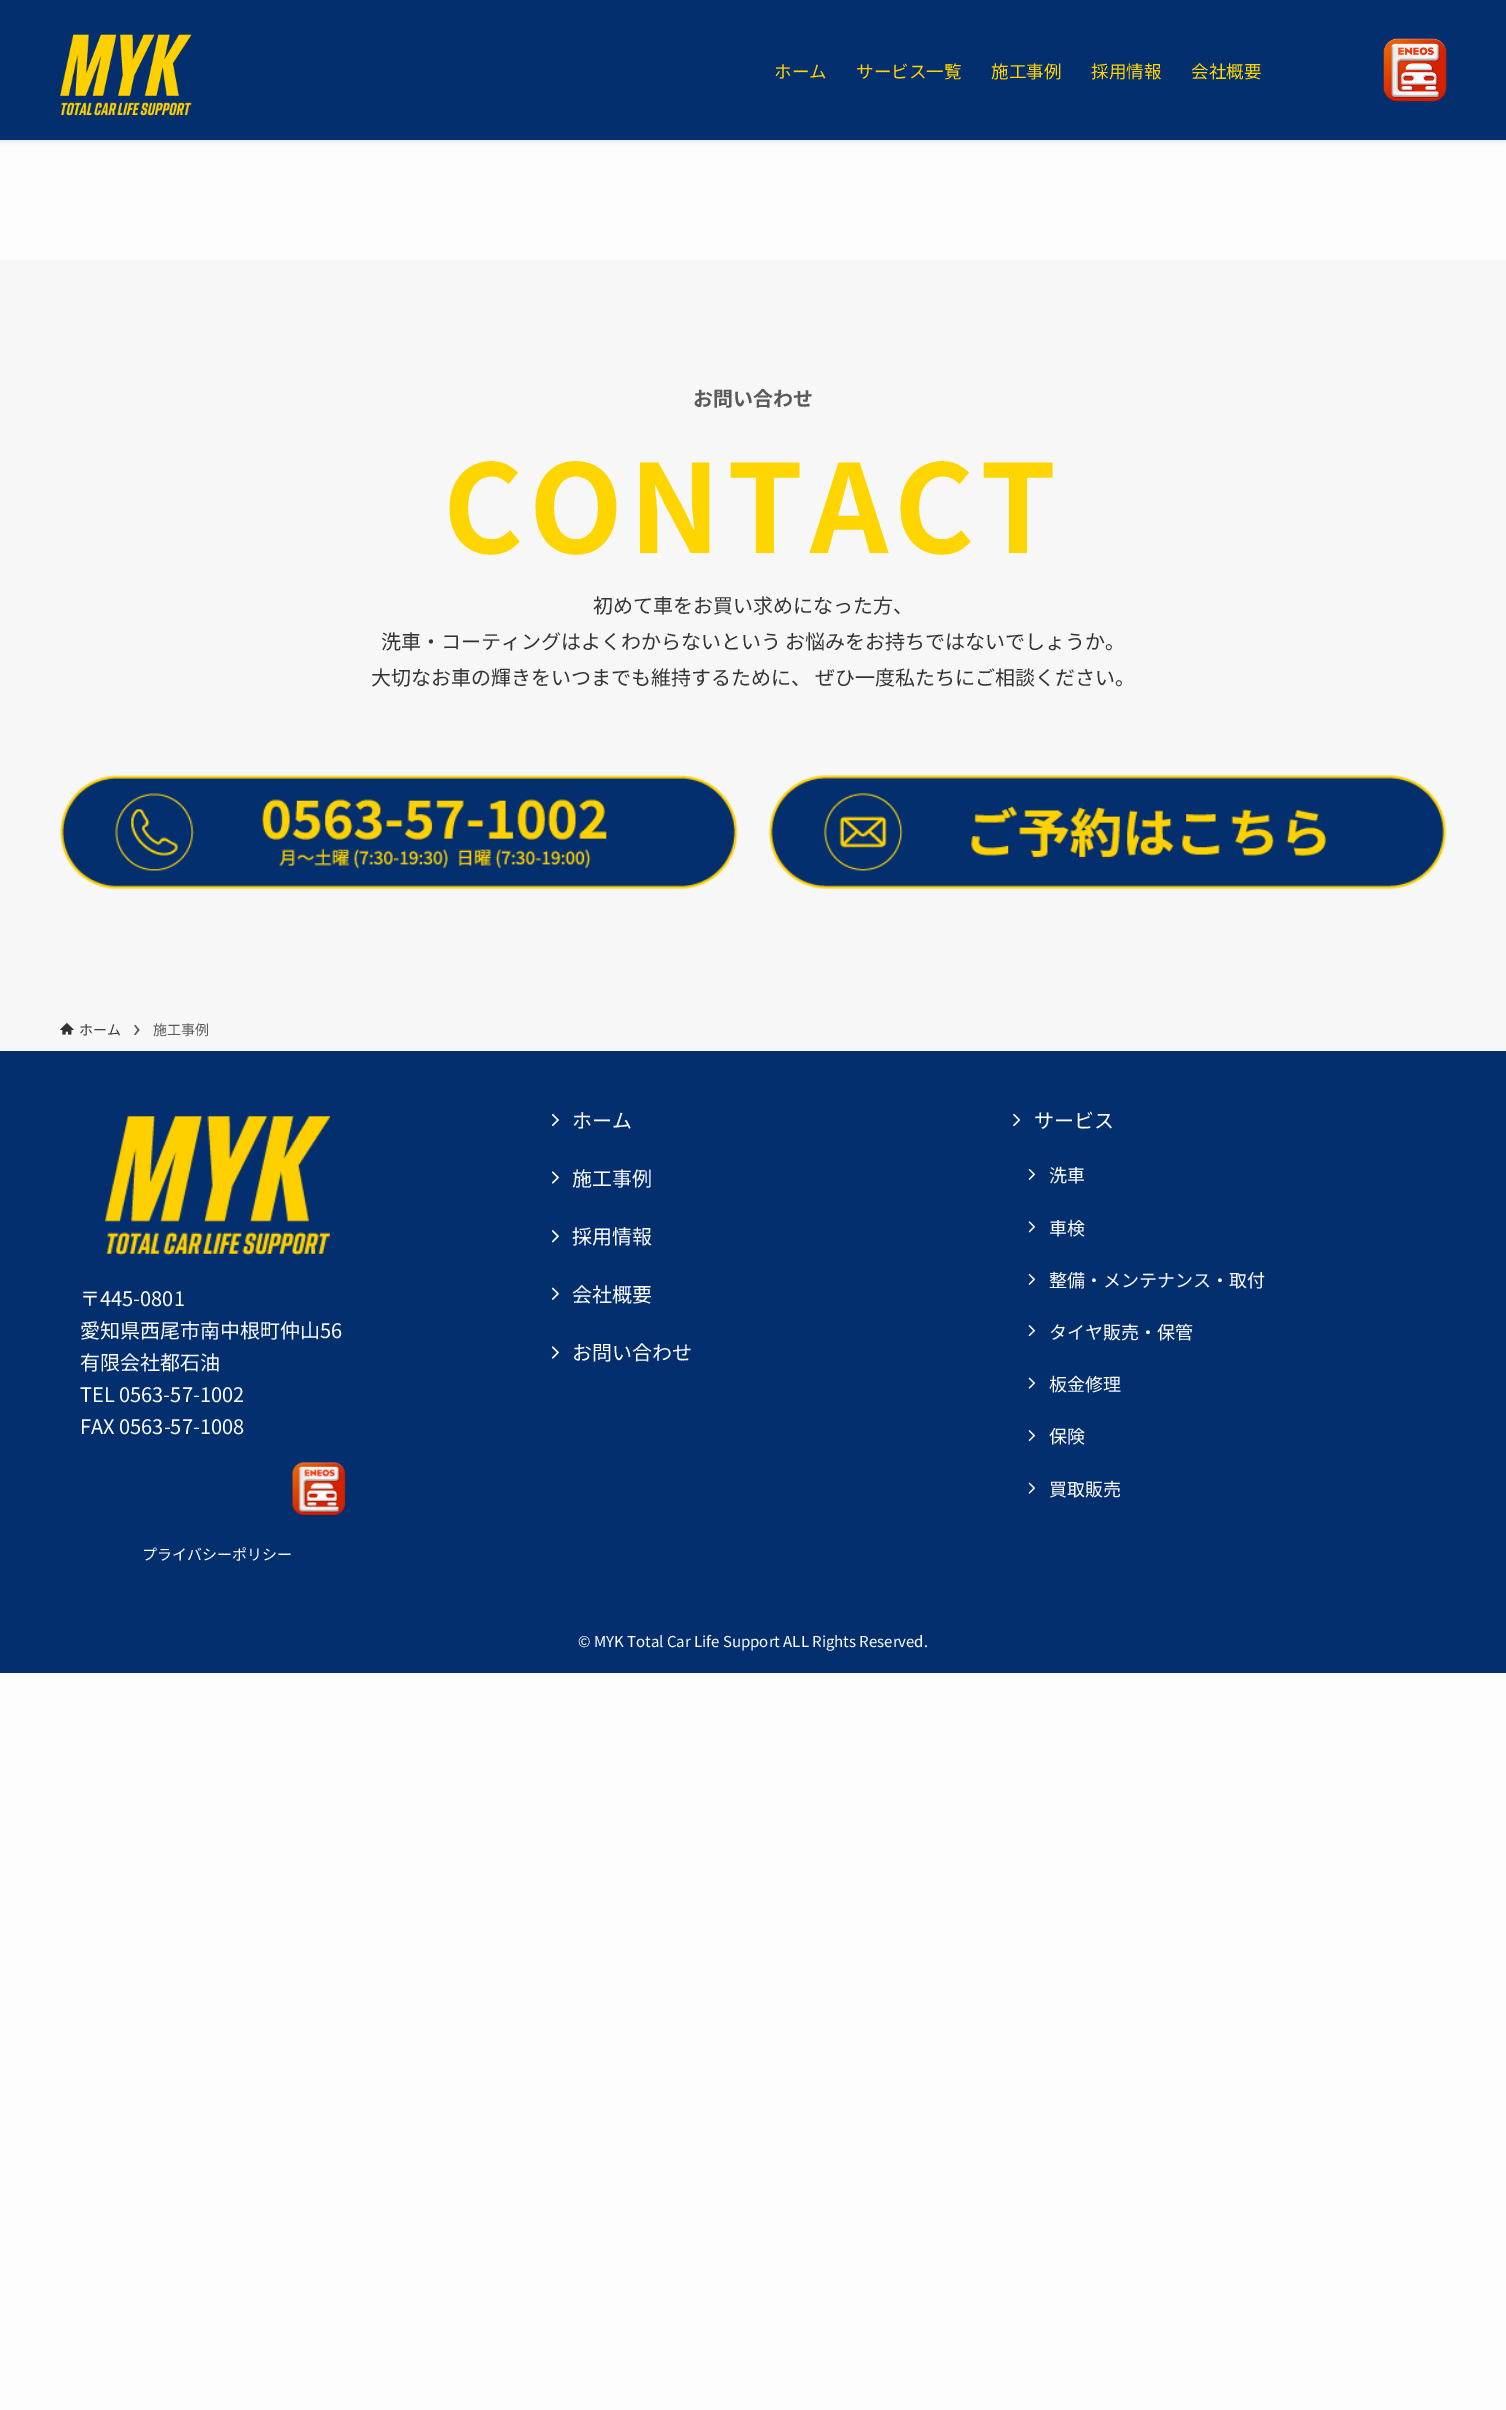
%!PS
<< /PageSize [1506 2410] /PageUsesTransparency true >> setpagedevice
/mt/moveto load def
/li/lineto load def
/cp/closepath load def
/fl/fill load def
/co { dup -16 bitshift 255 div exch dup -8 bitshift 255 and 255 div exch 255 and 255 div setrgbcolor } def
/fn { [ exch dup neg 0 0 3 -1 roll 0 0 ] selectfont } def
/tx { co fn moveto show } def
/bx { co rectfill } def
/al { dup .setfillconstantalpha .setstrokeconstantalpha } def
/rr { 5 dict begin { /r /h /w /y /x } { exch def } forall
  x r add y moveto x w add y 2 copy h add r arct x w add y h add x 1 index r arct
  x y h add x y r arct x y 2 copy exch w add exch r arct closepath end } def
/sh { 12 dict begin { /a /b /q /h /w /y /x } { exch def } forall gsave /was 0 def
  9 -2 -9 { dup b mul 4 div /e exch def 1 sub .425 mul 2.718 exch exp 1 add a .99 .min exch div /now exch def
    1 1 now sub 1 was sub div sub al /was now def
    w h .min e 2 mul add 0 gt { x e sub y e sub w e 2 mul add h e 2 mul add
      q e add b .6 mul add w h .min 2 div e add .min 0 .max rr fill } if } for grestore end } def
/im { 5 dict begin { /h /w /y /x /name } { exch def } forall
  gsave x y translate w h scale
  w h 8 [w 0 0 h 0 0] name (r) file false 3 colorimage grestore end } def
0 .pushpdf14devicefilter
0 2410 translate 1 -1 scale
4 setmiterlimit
0 0 1506 2410 16#FDFDFD bx
16#000000 co
0 1 1506 140 0 2.5 .12 sh
0 0 1506 140 16#042F6E bx
(media/1.raw) 60 34 132 82 im
(media/2.raw) 1383 38 64 64 im
0 260 1506 791 16#F7F7F7 bx
(media/3.raw) 60 775 678 114 im
(media/4.raw) 768 775 679 114 im
(media/5.raw) 60 1022 14 13 im
16#5A5A5A co
135.5 1025 mt 134 1025 li 137.5 1030 li 134 1035 li 135.5 1035 li 139.5 1030 li cp fl
0 1051 1506 622 16#042F6E bx
(media/6.raw) 551 1113 8 14 im
(media/7.raw) 551 1171 8 13 im
(media/8.raw) 551 1230 8 13 im
(media/9.raw) 551 1287 8 13 im
(media/7.raw) 551 1346 8 13 im
(media/10.raw) 1013 1113 8 14 im
(media/11.raw) 1028 1168 7 12 im
(media/12.raw) 1028 1221 7 12 im
(media/11.raw) 1028 1273 7 12 im
(media/13.raw) 1028 1325 7 12 im
(media/14.raw) 1028 1377 7 12 im
(media/13.raw) 1028 1430 7 12 im
(media/14.raw) 1028 1482 7 12 im
(media/15.raw) 105 1116 225 140 im
(media/16.raw) 292 1462 53 53 im
(ホーム) 774 78 /NotoSansJP-Regular 17.5 16#FFD500 tx
(サービス一覧) 856 78 /NotoSansJP-Regular 17.5 16#FFD500 tx
(施工事例) 991 78 /NotoSansJP-Regular 17.5 16#FFD500 tx
(採用情報) 1091 78 /NotoSansJP-Regular 17.5 16#FFD500 tx
(会社概要) 1191 78 /NotoSansJP-Regular 17.5 16#FFD500 tx
(お問い合わせ) 693 406 /NotoSansJP-Bold 20 16#5A5A5A tx
/NotoSansJP-Bold 122 fn
16#FFD500 co
443 553 mt 6.25 0 (CONTACT) ashow
(初めて車をお買い求めになった方、) 593 613 /NotoSansJP-Regular 20 16#333333 tx
(洗車・コーティングはよくわからないという お悩みをお持ちではないでしょうか。) 381 649 /NotoSansJP-Regular 20 16#333333 tx
(大切なお車の輝きをいつまでも維持するために、 ぜひ一度私たちにご相談ください。) 371 685 /NotoSansJP-Regular 20 16#333333 tx
(ホーム) 79 1035 /NotoSansJP-Regular 14 16#333333 tx
(施工事例) 153 1035 /NotoSansJP-Regular 14 16#5A5A5A tx
(ホーム) 572 1128 /NotoSansJP-Regular 20 16#FFFFFF tx
(施工事例) 572 1186 /NotoSansJP-Regular 20 16#FFFFFF tx
(採用情報) 572 1244 /NotoSansJP-Regular 20 16#FFFFFF tx
(会社概要) 572 1302 /NotoSansJP-Regular 20 16#FFFFFF tx
(お問い合わせ) 572 1360 /NotoSansJP-Regular 20 16#FFFFFF tx
(サービス) 1034 1128 /NotoSansJP-Regular 20 16#FFFFFF tx
(洗車) 1049 1182 /NotoSansJP-Regular 18 16#FFFFFF tx
(車検) 1049 1235 /NotoSansJP-Regular 18 16#FFFFFF tx
(整備・メンテナンス・取付) 1049 1287 /NotoSansJP-Regular 18 16#FFFFFF tx
(タイヤ販売・保管) 1049 1339 /NotoSansJP-Regular 18 16#FFFFFF tx
(板金修理) 1049 1391 /NotoSansJP-Regular 18 16#FFFFFF tx
(保険) 1049 1443 /NotoSansJP-Regular 18 16#FFFFFF tx
(買取販売) 1049 1496 /NotoSansJP-Regular 18 16#FFFFFF tx
(〒445-0801) 80 1306 /NotoSansJP-Regular 20 16#FFFFFF tx
(愛知県西尾市南中根町仲山56) 80 1338 /NotoSansJP-Regular 20 16#FFFFFF tx
(有限会社都石油) 80 1370 /NotoSansJP-Regular 20 16#FFFFFF tx
(TEL 0563-57-1002) 80 1402 /NotoSansJP-Regular 20 16#FFFFFF tx
(FAX 0563-57-1008) 80 1434 /NotoSansJP-Regular 20 16#FFFFFF tx
(プライバシーポリシー) 142 1560 /NotoSansJP-Regular 15 16#FFFFFF tx
(© MYK Total Car Life Support ALL Rights Reserved.) 578 1647 /NotoSansJP-Regular 15 16#FFFFFF tx
.poppdf14devicefilter showpage
